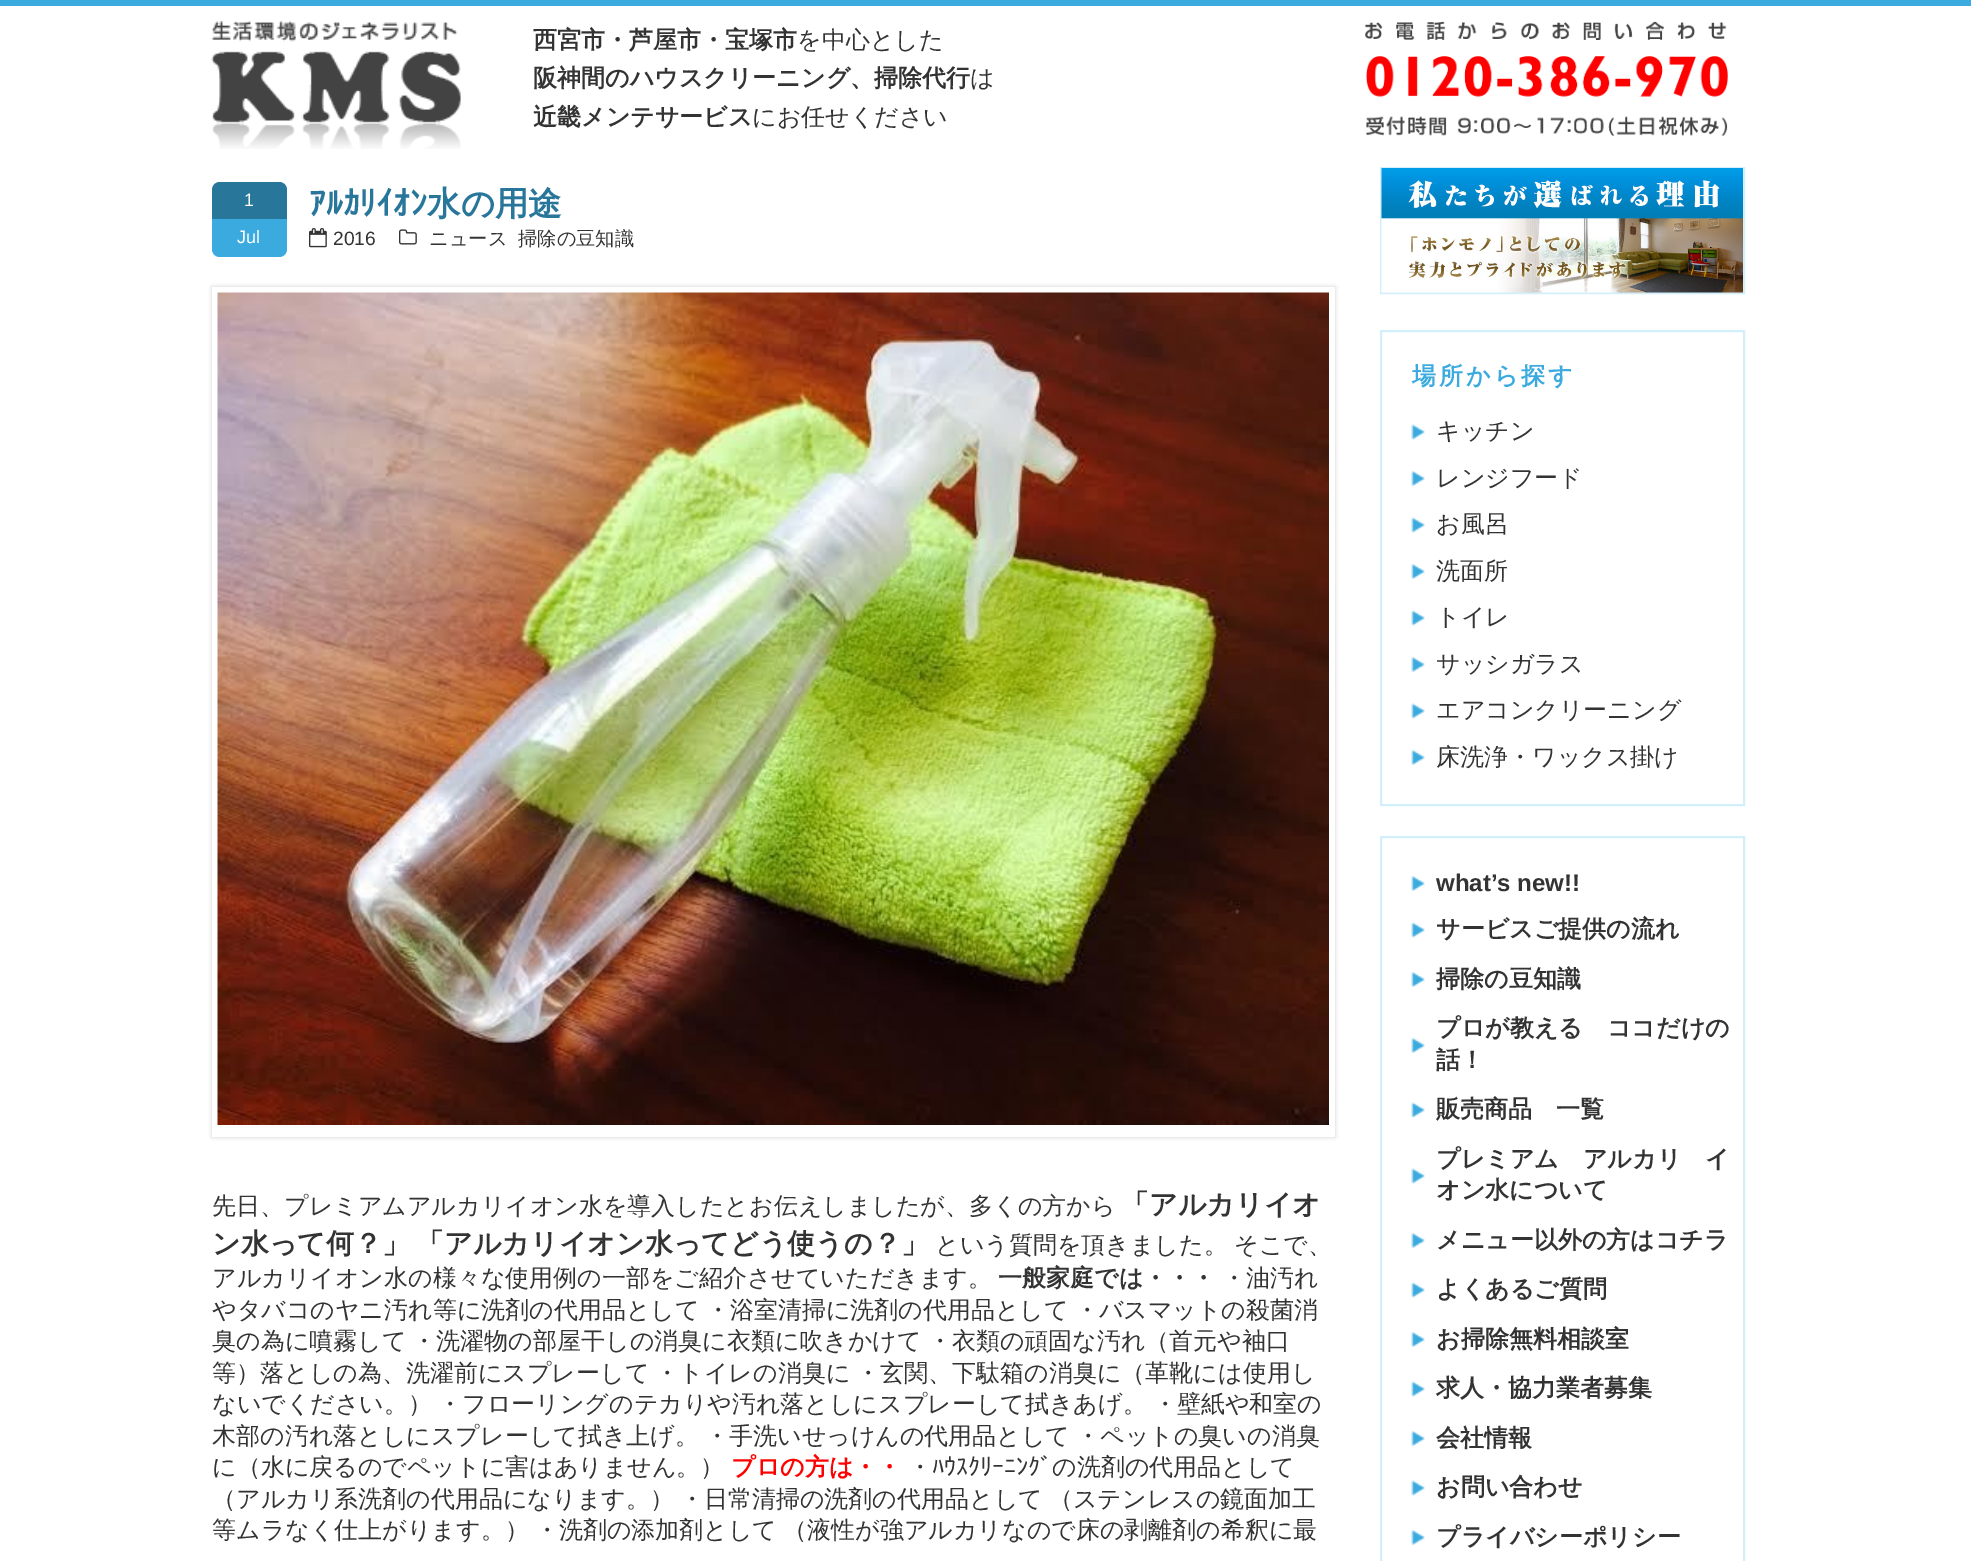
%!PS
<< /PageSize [1971 1561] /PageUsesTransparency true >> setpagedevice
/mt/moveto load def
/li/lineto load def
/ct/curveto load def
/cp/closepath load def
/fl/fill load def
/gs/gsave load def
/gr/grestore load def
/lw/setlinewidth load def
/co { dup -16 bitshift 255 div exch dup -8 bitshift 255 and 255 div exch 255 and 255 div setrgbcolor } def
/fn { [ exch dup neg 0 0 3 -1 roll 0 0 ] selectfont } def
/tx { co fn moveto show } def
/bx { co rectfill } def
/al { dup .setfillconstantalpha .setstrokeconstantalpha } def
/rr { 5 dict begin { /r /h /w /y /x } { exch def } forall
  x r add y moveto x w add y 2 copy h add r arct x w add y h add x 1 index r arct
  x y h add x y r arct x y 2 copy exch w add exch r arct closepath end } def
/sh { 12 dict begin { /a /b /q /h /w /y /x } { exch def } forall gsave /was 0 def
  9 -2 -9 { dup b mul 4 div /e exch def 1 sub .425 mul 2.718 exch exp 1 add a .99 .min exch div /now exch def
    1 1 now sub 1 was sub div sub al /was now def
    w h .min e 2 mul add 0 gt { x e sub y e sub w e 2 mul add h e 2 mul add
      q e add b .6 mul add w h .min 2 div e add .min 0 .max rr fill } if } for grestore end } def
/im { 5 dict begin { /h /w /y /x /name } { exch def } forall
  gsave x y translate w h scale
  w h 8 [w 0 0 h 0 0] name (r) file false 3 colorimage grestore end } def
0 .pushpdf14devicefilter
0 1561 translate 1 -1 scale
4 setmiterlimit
0 0 1971 1561 16#FFFFFF bx
0 0 1971 6 16#3BAADF bx
(media/1.raw) 211 21 250 128 im
(media/2.raw) 1365 21 363 115 im
16#29769B co
220 182 mt 279 182 li 283.5 182 287 185.5 287 190 ct 287 219 li 212 219 li 212 190 li 212 185.5 215.5 182 220 182 ct cp fl
16#3BAADF co
212 219 mt 287 219 li 287 249 li 287 253.5 283.5 257 279 257 ct 220 257 li 215.5 257 212 253.5 212 249 ct cp fl
(media/3.raw) 309 228 18 20 im
(media/4.raw) 399 229 18 16 im
gs
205 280 mt 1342 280 li 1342 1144 li 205 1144 li cp 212 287 mt 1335 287 li 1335 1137 li 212 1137 li cp eoclip newpath
16#CCCCCC co
212 287 1123 850 0 2 1 sh
gr
(media/5.raw) 217 292 1112 833 im
16#D4EFFC co
2 lw
1381 168 363 125 rectstroke
(media/6.raw) 1381 168 362 125 im
1381 331 363 474 rectstroke
(media/7.raw) 1411 424 14 16 im
(media/8.raw) 1411 471 14 15 im
(media/7.raw) 1411 517 14 16 im
(media/8.raw) 1411 564 14 15 im
(media/7.raw) 1411 610 14 16 im
(media/8.raw) 1411 657 14 15 im
(media/7.raw) 1411 703 14 16 im
(media/8.raw) 1411 750 14 15 im
1381 837 363 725 rectstroke
(media/8.raw) 1411 876 14 15 im
(media/7.raw) 1411 922 14 16 im
(media/8.raw) 1411 972 14 15 im
(media/8.raw) 1411 1038 14 15 im
(media/7.raw) 1411 1102 14 16 im
(media/7.raw) 1411 1168 14 16 im
(media/8.raw) 1411 1233 14 15 im
(media/7.raw) 1411 1282 14 16 im
(media/8.raw) 1411 1332 14 15 im
(media/7.raw) 1411 1381 14 16 im
(media/8.raw) 1411 1431 14 15 im
(media/7.raw) 1411 1480 14 16 im
(media/8.raw) 1411 1530 14 15 im
(西宮市・芦屋市・宝塚市) 533 48 /WenQuanYiZenHei-Bold 24 16#333333 tx
(を中心とした) 797 48 /WenQuanYiZenHei-Medium 24 16#333333 tx
(阪神間のハウスクリーニング、掃除代行) 533 86 /WenQuanYiZenHei-Bold 24 16#333333 tx
(は) 970 86 /WenQuanYiZenHei-Medium 24 16#333333 tx
(近畿メンテサービス) 533 125 /WenQuanYiZenHei-Bold 24 16#333333 tx
(にお任せください) 752 125 /WenQuanYiZenHei-Medium 24 16#333333 tx
(1) 244 206 /LiberationSans-Regular 18 16#FFFFFF tx
(Jul) 237 243 /LiberationSans-Regular 18 16#FFFFFF tx
(ｱﾙｶﾘｲｵﾝ) 309 215 /IPAPGothic-Bold 33.5 16#29769B tx
(水の用途) 427 215 /WenQuanYiZenHei-Bold 33.5 16#29769B tx
(2016) 333 245 /LiberationSans-Regular 19.25 16#333333 tx
(ニュース) 429 245 /WenQuanYiZenHei-Medium 19.25 16#333333 tx
(掃除の豆知識) 518 245 /WenQuanYiZenHei-Medium 19.25 16#333333 tx
(先日、プレミアムアルカリイオン水を導入したとお伝えしましたが、多くの方から) 212 1214 /WenQuanYiZenHei-Medium 24 16#333333 tx
(「アルカリイオ) 1121 1214 /WenQuanYiZenHei-Bold 28 16#333333 tx
(ン水って何？」) 212 1253 /WenQuanYiZenHei-Bold 28 16#333333 tx
(「アルカリイオン水ってどう使うの？」) 416 1253 /WenQuanYiZenHei-Bold 28 16#333333 tx
(という質問を頂きました。) 935 1253 /WenQuanYiZenHei-Medium 24 16#333333 tx
(そこで、) 1234 1253 /WenQuanYiZenHei-Medium 24 16#333333 tx
(アルカリイオン水の様々な使用例の一部をご紹介させていただきます。) 212 1286 /WenQuanYiZenHei-Medium 24 16#333333 tx
(一般家庭では・・・) 998 1286 /WenQuanYiZenHei-Bold 24 16#333333 tx
(・油汚れ) 1222 1286 /WenQuanYiZenHei-Medium 24 16#333333 tx
212 1318 mt -1 0 32 (やタバコのヤニ汚れ等に洗剤の代用品として ・浴室清掃に洗剤の代用品として ・バスマットの殺菌消) widthshow
212 1349 mt -1 0 32 (臭の為に噴霧して ・洗濯物の部屋干しの消臭に衣類に吹きかけて ・衣類の頑固な汚れ（首元や袖口) widthshow
212 1381 mt -1 0 32 (等）落としの為、洗濯前にスプレーして ・トイレの消臭に ・玄関、下駄箱の消臭に（革靴には使用し) widthshow
212 1412 mt -1 0 32 (ないでください。） ・フローリングのテカりや汚れ落としにスプレーして拭きあげ。 ・壁紙や和室の) widthshow
212 1444 mt -1 0 32 (木部の汚れ落としにスプレーして拭き上げ。 ・手洗いせっけんの代用品として ・ペットの臭いの消臭) widthshow
(に（水に戻るのでペットに害はありません。）) 212 1475 /WenQuanYiZenHei-Medium 24 16#333333 tx
(プロの方は・・) 731 1475 /WenQuanYiZenHei-Bold 24 16#FF0000 tx
(・) 908 1475 /WenQuanYiZenHei-Medium 24 16#333333 tx
(ﾊｳｽｸﾘｰﾆﾝｸﾞ) 932 1475 /IPAPGothic-Regular 24 16#333333 tx
(の洗剤の代用品として) 1052 1475 /WenQuanYiZenHei-Medium 24 16#333333 tx
212 1507 mt -1 0 32 (（アルカリ系洗剤の代用品になります。） ・日常清掃の洗剤の代用品として （ステンレスの鏡面加工) widthshow
212 1538 mt -1 0 32 (等ムラなく仕上がります。） ・洗剤の添加剤として （液性が強アルカリなので床の剥離剤の希釈に最) widthshow
/WenQuanYiZenHei-Bold 24 fn
16#3BAADF co
1412 384 mt 3 0 (場所から探す) ashow
(キッチン) 1436 439 /WenQuanYiZenHei-Medium 24 16#333333 tx
(レンジフード) 1436 486 /WenQuanYiZenHei-Medium 24 16#333333 tx
(お風呂) 1436 532 /WenQuanYiZenHei-Medium 24 16#333333 tx
(洗面所) 1436 579 /WenQuanYiZenHei-Medium 24 16#333333 tx
(トイレ) 1436 625 /WenQuanYiZenHei-Medium 24 16#333333 tx
(サッシガラス) 1436 672 /WenQuanYiZenHei-Medium 24 16#333333 tx
(エアコンクリーニング) 1436 718 /WenQuanYiZenHei-Medium 24 16#333333 tx
(床洗浄・ワックス掛け) 1436 765 /WenQuanYiZenHei-Medium 24 16#333333 tx
(what’s new!!) 1436 891 /LiberationSans-Bold 24 16#333333 tx
(サービスご提供の流れ) 1436 937 /WenQuanYiZenHei-Bold 24 16#333333 tx
(掃除の豆知識) 1436 987 /WenQuanYiZenHei-Bold 24 16#333333 tx
(プロが教える　ココだけの) 1436 1036 /WenQuanYiZenHei-Bold 24 16#333333 tx
(話！) 1436 1068 /WenQuanYiZenHei-Bold 24 16#333333 tx
(販売商品　一覧) 1436 1117 /WenQuanYiZenHei-Bold 24 16#333333 tx
(プレミアム　アルカリ　イ) 1436 1167 /WenQuanYiZenHei-Bold 24 16#333333 tx
(オン水について) 1436 1198 /WenQuanYiZenHei-Bold 24 16#333333 tx
(メニュー以外の方はコチラ) 1436 1248 /WenQuanYiZenHei-Bold 24 16#333333 tx
(よくあるご質問) 1436 1297 /WenQuanYiZenHei-Bold 24 16#333333 tx
(お掃除無料相談室) 1436 1347 /WenQuanYiZenHei-Bold 24 16#333333 tx
(求人・協力業者募集) 1436 1396 /WenQuanYiZenHei-Bold 24 16#333333 tx
(会社情報) 1436 1446 /WenQuanYiZenHei-Bold 24 16#333333 tx
(お問い合わせ) 1436 1495 /WenQuanYiZenHei-Bold 24 16#333333 tx
(プライバシーポリシー) 1436 1545 /WenQuanYiZenHei-Bold 24 16#333333 tx
.poppdf14devicefilter showpage
